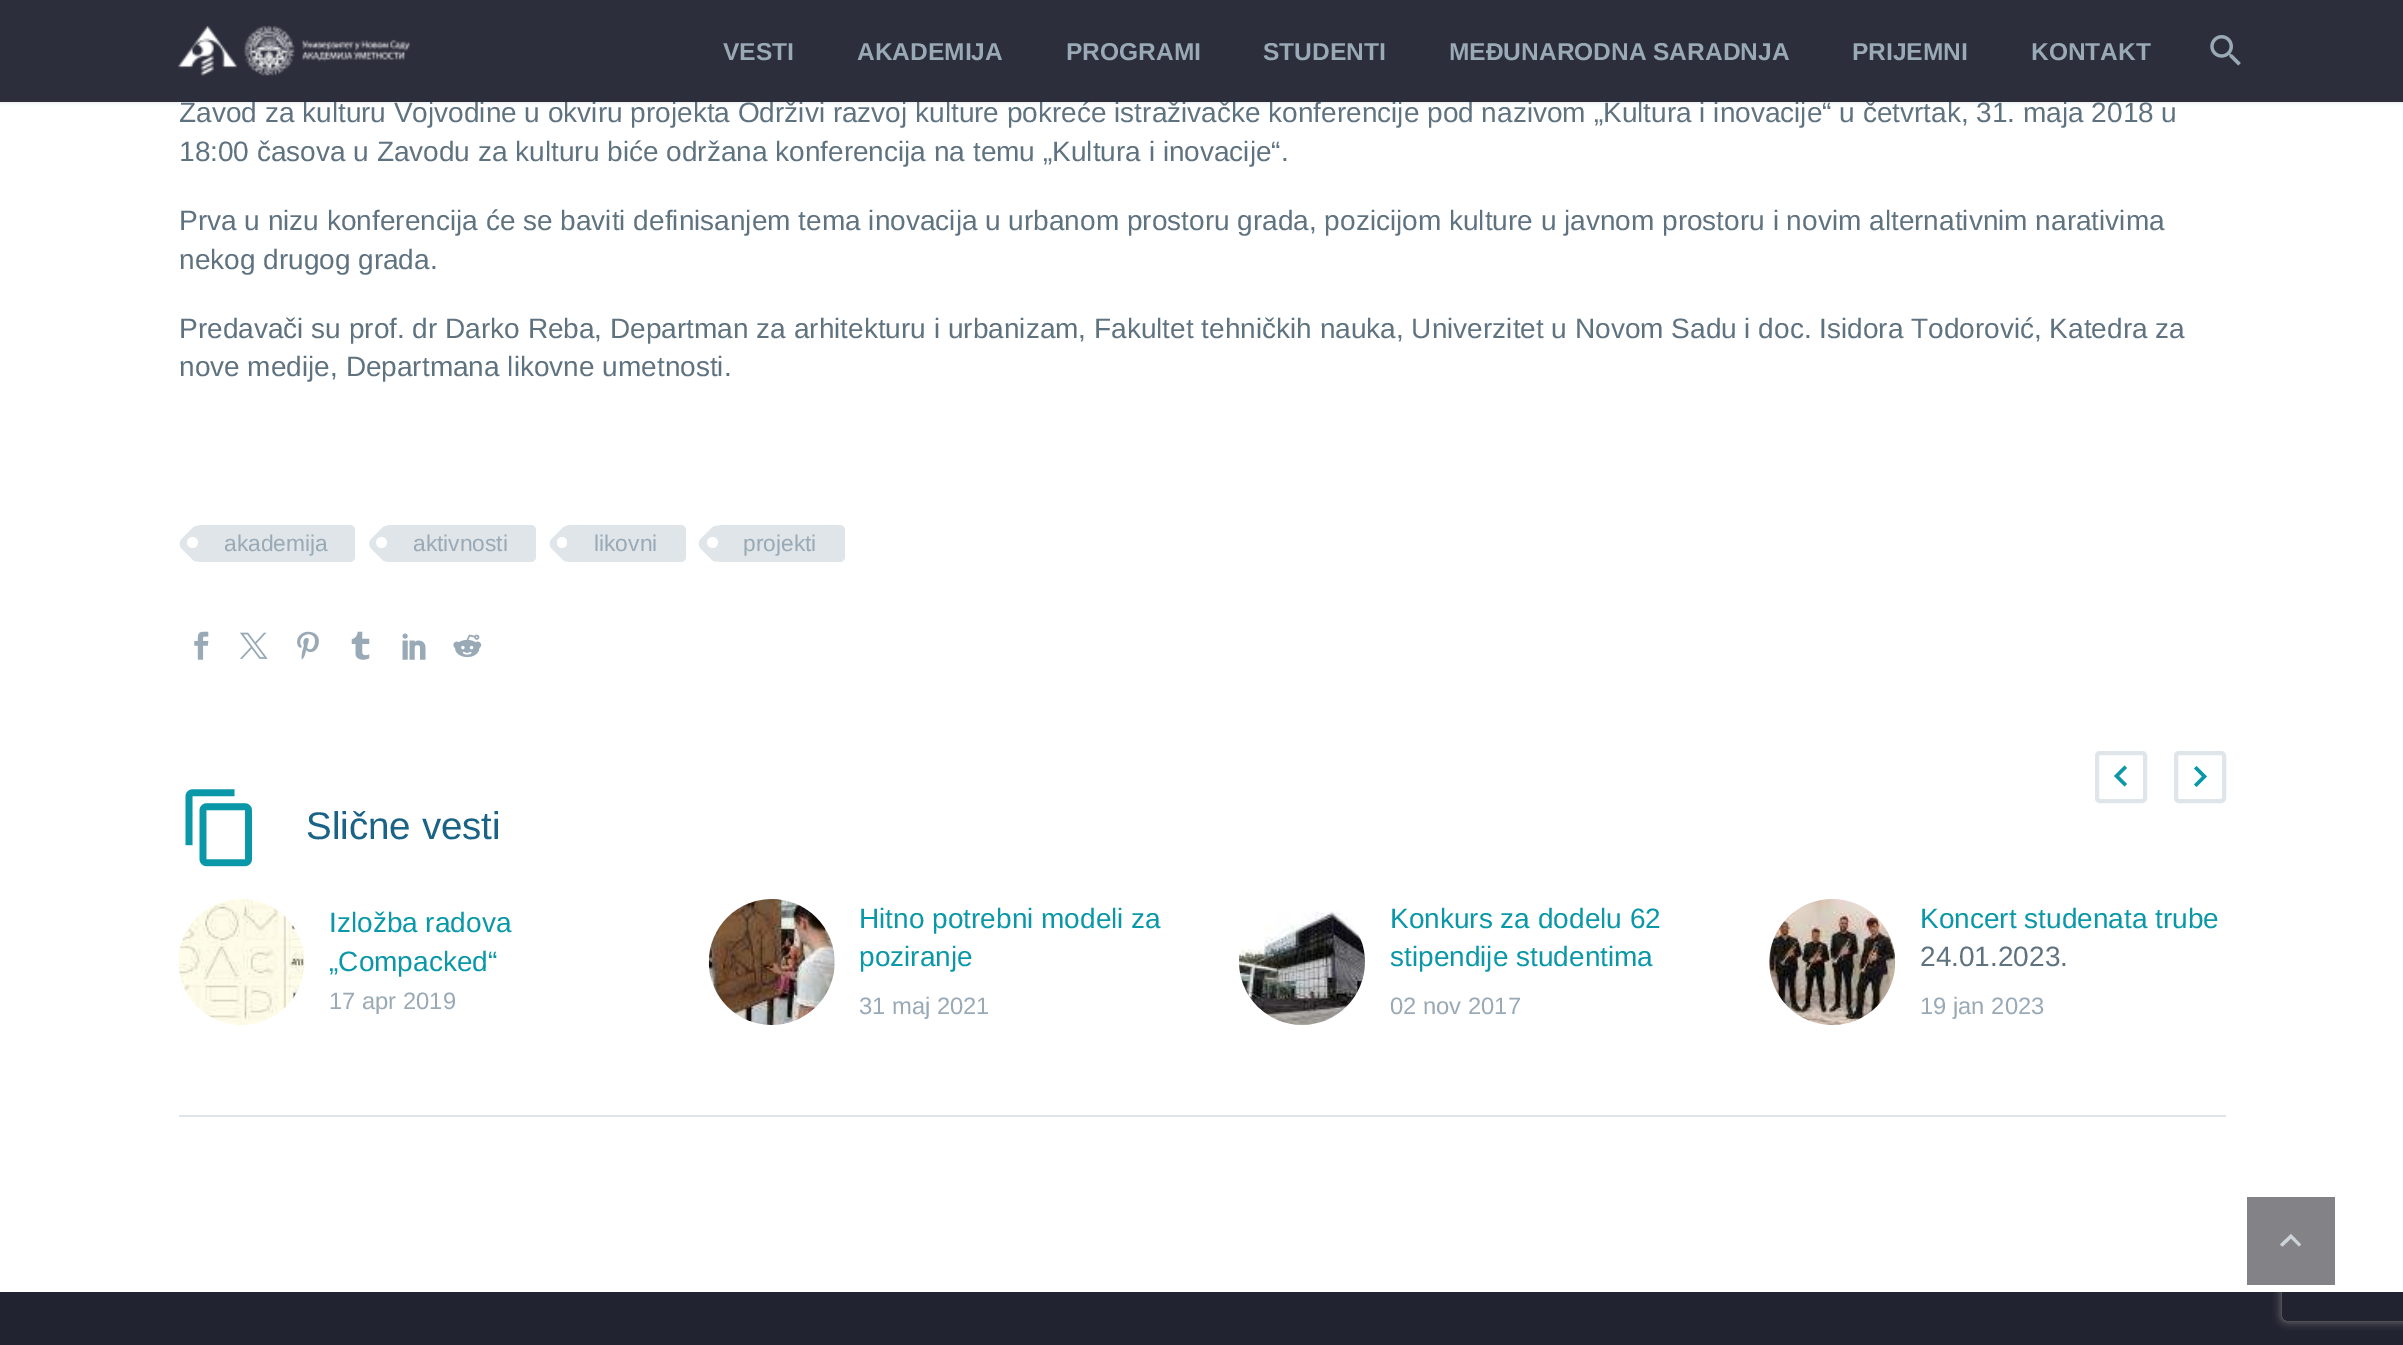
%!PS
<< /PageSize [2403 1345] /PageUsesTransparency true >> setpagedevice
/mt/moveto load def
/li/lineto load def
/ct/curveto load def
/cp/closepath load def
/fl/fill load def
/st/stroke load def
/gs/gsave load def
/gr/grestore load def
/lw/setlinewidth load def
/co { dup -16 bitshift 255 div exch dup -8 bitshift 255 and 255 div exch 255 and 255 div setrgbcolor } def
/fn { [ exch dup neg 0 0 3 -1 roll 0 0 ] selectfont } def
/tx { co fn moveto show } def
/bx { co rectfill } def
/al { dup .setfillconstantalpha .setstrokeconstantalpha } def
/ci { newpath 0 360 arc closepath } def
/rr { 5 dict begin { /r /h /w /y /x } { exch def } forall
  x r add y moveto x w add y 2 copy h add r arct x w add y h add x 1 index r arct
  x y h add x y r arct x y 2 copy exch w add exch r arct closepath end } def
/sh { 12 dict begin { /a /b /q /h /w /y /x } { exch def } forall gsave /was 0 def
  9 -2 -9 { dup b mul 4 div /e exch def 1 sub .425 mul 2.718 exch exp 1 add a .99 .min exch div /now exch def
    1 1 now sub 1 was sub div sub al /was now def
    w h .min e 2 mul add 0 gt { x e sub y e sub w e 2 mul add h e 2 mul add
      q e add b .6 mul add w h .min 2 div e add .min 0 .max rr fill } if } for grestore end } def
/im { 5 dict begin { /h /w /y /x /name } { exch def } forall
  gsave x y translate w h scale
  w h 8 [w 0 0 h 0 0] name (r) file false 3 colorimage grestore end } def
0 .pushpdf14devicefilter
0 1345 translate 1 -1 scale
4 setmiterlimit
0 0 2403 1345 16#212331 bx
gs
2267 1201 mt 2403 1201 li 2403 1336 li 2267 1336 li cp 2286 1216 mt 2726 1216 li 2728 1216 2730 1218 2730 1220 ct 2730 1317 li 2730 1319 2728 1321 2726 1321 ct 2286 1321 li 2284 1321 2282 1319 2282 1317 ct 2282 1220 li 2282 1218 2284 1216 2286 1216 ct cp eoclip newpath
16#808080 co
2282 1216 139 105 4 4.5 1 sh
gr
0 0 2403 1292 16#FFFFFF bx
gs
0 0 mt 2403 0 li 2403 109 li 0 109 li cp 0 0 mt 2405 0 li 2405 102 li 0 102 li cp eoclip newpath
16#384554 co
0 0 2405 102 0 2 .2 sh
gr
16#DFE5E8 co
196 525 159 37 5 rr fl
203 528 mt 213.5 538.5 li 216.5 541.5 216.5 546 213.5 549 ct 203 559.5 li 200 562.5 195.5 562.5 192.5 559.5 ct 182 549 li 179 546 179 541.5 182 538.5 ct 192.5 528 li 195.5 525 200 525 203 528 ct cp fl
16#FFFFFF co
192.5 542.5 5.5 ci fl
16#DFE5E8 co
385 525 151 37 5 rr fl
392.5 528 mt 403 538.5 li 406 541.5 406 546 403 549 ct 392.5 559.5 li 389.5 562.5 385 562.5 382 559.5 ct 371.5 549 li 368.5 546 368.5 541.5 371.5 538.5 ct 382 528 li 385 525 389.5 525 392.5 528 ct cp fl
16#FFFFFF co
381.5 542.5 5.5 ci fl
16#DFE5E8 co
565 525 121 37 5 rr fl
573 528 mt 583.5 538.5 li 586.5 541.5 586.5 546 583.5 549 ct 573 559.5 li 570 562.5 565.5 562.5 562.5 559.5 ct 552 549 li 549 546 549 541.5 552 538.5 ct 562.5 528 li 565.5 525 570 525 573 528 ct cp fl
16#FFFFFF co
557 537 10 11 5 rr fl
16#DFE5E8 co
716 525 129 37 5 rr fl
722 528 mt 732.5 538.5 li 735.5 541.5 735.5 546 732.5 549 ct 722 559.5 li 719 562.5 714.5 562.5 711.5 559.5 ct 701 549 li 698 546 698 541.5 701 538.5 ct 711.5 528 li 714.5 525 719 525 722 528 ct cp fl
16#FFFFFF co
712.5 542.5 5.5 ci fl
(media/3.raw) 194 631 15 29 im
(media/4.raw) 240 632 28 27 im
(media/5.raw) 297 631 22 29 im
(media/6.raw) 351 631 19 29 im
(media/7.raw) 402 633 24 27 im
(media/8.raw) 453 634 29 24 im
179 1115 2047 2 16#DFE5E8 bx
(media/9.raw) 185 789 67 78 im
4 lw
2097 753 48 48 3 rr st
16#0A98A8 co
2127 784 mt 2119 776 li 2127 768 li 2124.5 765.5 li 2114 776 li 2124.5 786.5 li cp fl
16#DFE5E8 co
2176 753 48 48 3 rr st
16#0A98A8 co
2194 784.5 mt 2202 776.5 li 2194 768.5 li 2196.5 766 li 2207 776.5 li 2196.5 787 li cp fl
(media/10.raw) 178 899 127 126 im
(media/11.raw) 708 899 127 126 im
(media/12.raw) 1239 911 126 114 im
(media/13.raw) 1769 899 127 126 im
2247 1197 88 88 16#838387 bx
16#CCD4DA co
2282.5 1246.5 mt 2291 1238.5 li 2299 1246.5 li 2301 1244.5 li 2291 1234 li 2280 1244.5 li cp fl
(Zavod za kulturu Vojvodine u okviru projekta Održivi razvoj kulture pokreće istraživačke konferencije pod nazivom „Kultura i inovacije“ u četvrtak, 31. maja 2018 u) 179 122 /LiberationSans-Regular 28 16#5F727F tx
0.95 al
0 0 2403 102 16#212331 bx
1 al
(media/2.raw) 2210 35 31 31 im
(KONTAKT) 2031 60 /LiberationSans-Bold 24.5 16#99A9B5 tx
(PRIJEMNI) 1852 60 /LiberationSans-Bold 24.5 16#99A9B5 tx
(MEĐUNARODNA SARADNJA) 1449 60 /LiberationSans-Bold 24.5 16#99A9B5 tx
(STUDENTI) 1263 60 /LiberationSans-Bold 24.5 16#99A9B5 tx
(PROGRAMI) 1066 60 /LiberationSans-Bold 24.5 16#99A9B5 tx
(AKADEMIJA) 857 60 /LiberationSans-Bold 24.5 16#99A9B5 tx
(VESTI) 723 60 /LiberationSans-Bold 24.5 16#99A9B5 tx
(media/1.raw) 178 26 232 50 im
(18:00 časova u Zavodu za kulturu biće održana konferencija na temu „Kultura i inovacije“.) 179 161 /LiberationSans-Regular 28 16#5F727F tx
(Prva u nizu konferencija će se baviti definisanjem tema inovacija u urbanom prostoru grada, pozicijom kulture u javnom prostoru i novim alternativnim narativima) 179 230 /LiberationSans-Regular 28 16#5F727F tx
(nekog drugog grada.) 179 269 /LiberationSans-Regular 28 16#5F727F tx
(Predavači su prof. dr Darko Reba, Departman za arhitekturu i urbanizam, Fakultet tehničkih nauka, Univerzitet u Novom Sadu i doc. Isidora Todorović, Katedra za) 179 338 /LiberationSans-Regular 28 16#5F727F tx
(nove medije, Departmana likovne umetnosti.) 179 376 /LiberationSans-Regular 28 16#5F727F tx
(akademija) 224 551 /LiberationSans-Regular 22.75 16#99A9B5 tx
(aktivnosti) 413 551 /LiberationSans-Regular 22.75 16#99A9B5 tx
(likovni) 594 551 /LiberationSans-Regular 22.75 16#99A9B5 tx
(projekti) 743 551 /LiberationSans-Regular 22.75 16#99A9B5 tx
(Slične vesti) 306 839 /LiberationSans-Regular 38.5 16#1B6287 tx
(Izložba radova) 329 932 /LiberationSans-Regular 28 16#0A98A8 tx
(„Compacked“) 329 971 /LiberationSans-Regular 28 16#0A98A8 tx
(17 apr 2019) 329 1009 /LiberationSans-Regular 23.75 16#99A9B5 tx
(Hitno potrebni modeli za) 859 928 /LiberationSans-Regular 28 16#0A98A8 tx
(poziranje) 859 966 /LiberationSans-Regular 28 16#0A98A8 tx
(31 maj 2021) 859 1014 /LiberationSans-Regular 23.75 16#99A9B5 tx
(Konkurs za dodelu 62) 1390 928 /LiberationSans-Regular 28 16#0A98A8 tx
(stipendije studentima) 1390 966 /LiberationSans-Regular 28 16#0A98A8 tx
(02 nov 2017) 1390 1014 /LiberationSans-Regular 23.75 16#99A9B5 tx
(Koncert studenata trube) 1920 928 /LiberationSans-Regular 28 16#0A98A8 tx
(24.01.2023.) 1920 966 /LiberationSans-Regular 28 16#5F727F tx
(19 jan 2023) 1920 1014 /LiberationSans-Regular 23.75 16#99A9B5 tx
.poppdf14devicefilter showpage
